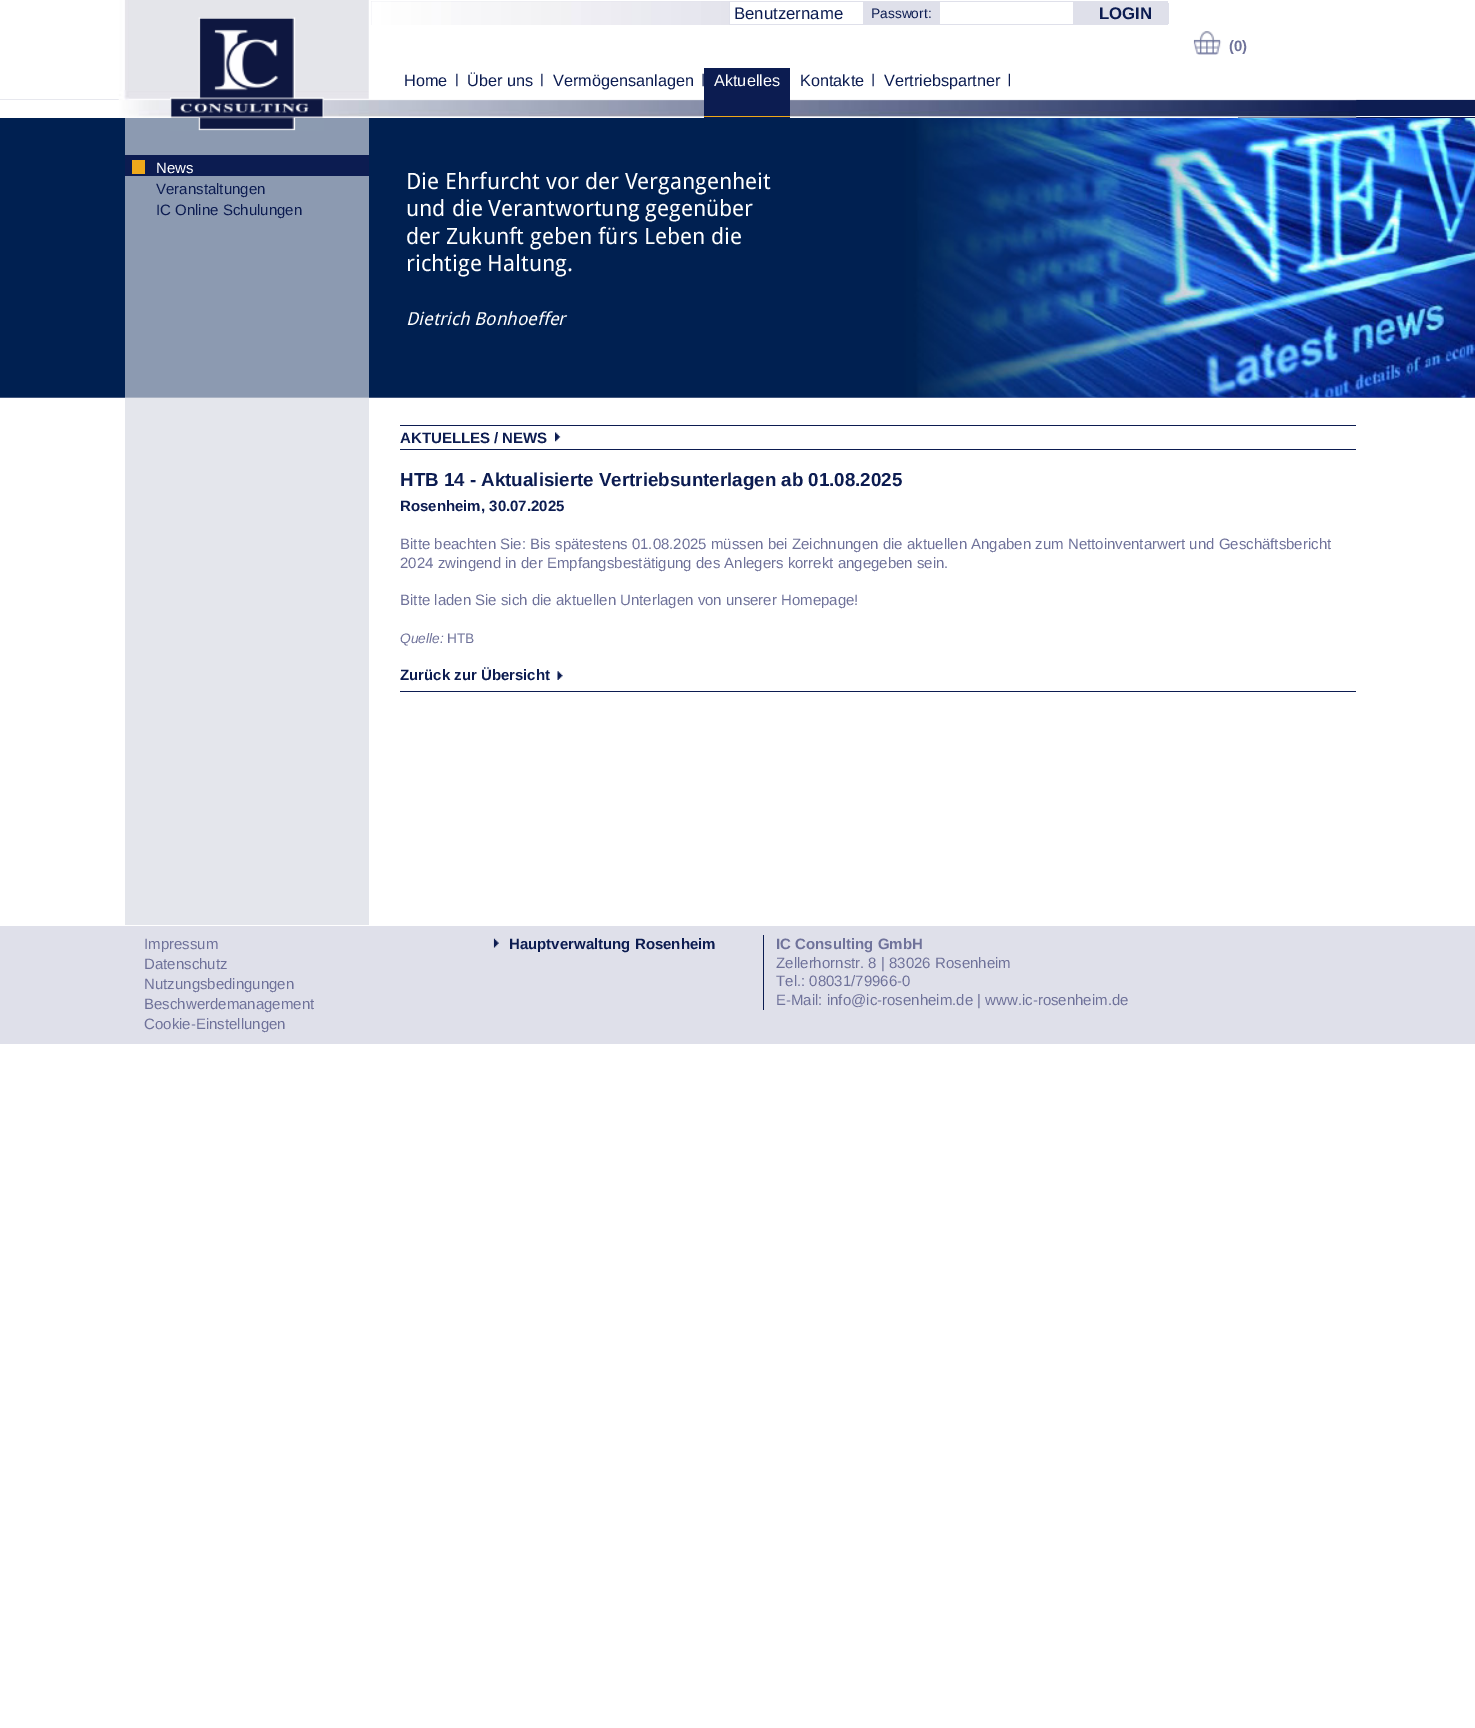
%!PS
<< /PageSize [1475 1728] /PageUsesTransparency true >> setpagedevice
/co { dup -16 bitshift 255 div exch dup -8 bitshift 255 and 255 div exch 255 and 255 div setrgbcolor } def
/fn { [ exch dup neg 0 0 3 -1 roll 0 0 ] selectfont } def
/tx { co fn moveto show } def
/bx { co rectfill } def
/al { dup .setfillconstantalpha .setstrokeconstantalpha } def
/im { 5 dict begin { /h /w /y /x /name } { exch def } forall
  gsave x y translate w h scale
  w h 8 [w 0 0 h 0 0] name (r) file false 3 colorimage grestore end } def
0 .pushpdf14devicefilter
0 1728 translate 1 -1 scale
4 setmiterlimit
0 0 1475 1728 16#FFFFFF bx
(media/1.raw) 0 99 1475 299 im
1238 100 237 18 16#0D1D52 bx
0 100 1238 18 16#FFFFFF bx
1238 116 237 1 16#FFFFFF bx
(media/2.raw) 118 0 1239 118 im
371 1 797 24 16#DFE0EA bx
(media/3.raw) 371 1 358 24 im
730 2 133 22 16#FFFFFF bx
940 2 133 22 16#FFFFFF bx
1168 3 1 21 16#DFE0EA bx
(media/12.raw) 0 118 1475 280 im
0.55 al
125 118 244 280 16#FFFFFF bx
1 al
(media/4.raw) 170 17 154 114 im
(media/5.raw) 1193 31 29 24 im
(media/6.raw) 456 73 2 14 im
(media/6.raw) 541 73 2 14 im
(media/7.raw) 702 73 2 14 im
704 68 86 50 16#0C1C51 bx
704 116 86 1 16#EFA918 bx
(media/7.raw) 872 73 2 14 im
(media/8.raw) 1008 73 2 14 im
125 398 244 527 16#E4E6EC bx
125 155 244 21 16#0C1C51 bx
132 160 13 14 16#EFA91B bx
400 425 956 1 16#0C1C51 bx
400 449 956 1 16#0C1C51 bx
(media/9.raw) 555 432 6 10 im
400 691 956 1 16#0C1C51 bx
(media/10.raw) 557 671 6 9 im
0 926 1475 118 16#DFE0EA bx
(media/11.raw) 493 938 6 10 im
763 935 1 75 16#0A1C51 bx
(Benutzername) 734 19 /LiberationSans-Regular 16.75 16#0C1C51 tx
(Passwort:) 871 18 /LiberationSans-Regular 13.75 16#0C1C51 tx
(LOGIN) 1099 19 /LiberationSans-Bold 16.75 16#0C1C51 tx
(\(0\)) 1229 51 /LiberationSans-Bold 15 16#6F729A tx
(Home) 404 86 /LiberationSans-Regular 16.25 16#0C1C51 tx
(Über uns) 467 86 /LiberationSans-Regular 16.25 16#0C1C51 tx
(Vermögensanlagen) 553 86 /LiberationSans-Regular 16.25 16#0C1C51 tx
(Aktuelles) 714 86 /LiberationSans-Regular 16.25 16#FFFFFF tx
(Kontakte) 800 86 /LiberationSans-Regular 16.25 16#0C1C51 tx
(Vertriebspartner) 884 86 /LiberationSans-Regular 16.25 16#0C1C51 tx
(News) 156 173 /LiberationSans-Regular 15 16#FFFFFF tx
(Veranstaltungen) 156 194 /LiberationSans-Regular 15 16#0C1C51 tx
(IC Online Schulungen) 156 215 /LiberationSans-Regular 15 16#0C1C51 tx
(AKTUELLES / NEWS) 400 443 /LiberationSans-Bold 15 16#0C1C51 tx
(HTB 14 - Aktualisierte Vertriebsunterlagen ab 01.08.2025) 400 486 /LiberationSans-Bold 18.75 16#0C1C51 tx
(Rosenheim, 30.07.2025) 400 511 /LiberationSans-Bold 15 16#0C1C51 tx
(Bitte beachten Sie: Bis spätestens 01.08.2025 müssen bei Zeichnungen die aktuellen Angaben zum Nettoinventarwert und Geschäftsbericht) 400 549 /LiberationSans-Regular 15 16#6F729A tx
(2024 zwingend in der Empfangsbestätigung des Anlegers korrekt angegeben sein.) 400 568 /LiberationSans-Regular 15 16#6F729A tx
(Bitte laden Sie sich die aktuellen Unterlagen von unserer Homepage!) 400 605 /LiberationSans-Regular 15 16#6F729A tx
(Quelle:) 400 643 /LiberationSans-Italic 13.75 16#6F729A tx
(HTB) 447 643 /LiberationSans-Regular 13.75 16#6F729A tx
(Zurück zur Übersicht) 400 680 /LiberationSans-Bold 15 16#0C1C51 tx
(Impressum) 144 949 /LiberationSans-Regular 15 16#6F729A tx
(Datenschutz) 144 969 /LiberationSans-Regular 15 16#6F729A tx
(Nutzungsbedingungen) 144 989 /LiberationSans-Regular 15 16#6F729A tx
(Beschwerdemanagement) 144 1009 /LiberationSans-Regular 15 16#6F729A tx
(Cookie-Einstellungen) 144 1029 /LiberationSans-Regular 15 16#6F729A tx
(Hauptverwaltung Rosenheim) 509 949 /LiberationSans-Bold 15 16#0C1C51 tx
(IC Consulting GmbH) 776 949 /LiberationSans-Bold 15 16#6F729A tx
(Zellerhornstr. 8 | 83026 Rosenheim) 776 968 /LiberationSans-Regular 15 16#6F729A tx
(Tel.: 08031/79966-0) 776 986 /LiberationSans-Regular 15 16#6F729A tx
(E-Mail: info@ic-rosenheim.de | www.ic-rosenheim.de) 776 1005 /LiberationSans-Regular 15 16#6F729A tx
(Die Ehrfurcht vor der Vergangenheit) 406 189 /DroidSans-Regular 22.5 16#FFFFFF tx
(und die Verantwortung gegenüber) 406 216 /DroidSans-Regular 22.5 16#FFFFFF tx
(der Zukunft geben fürs Leben die) 406 244 /DroidSans-Regular 22.5 16#FFFFFF tx
(richtige Haltung.) 406 271 /DroidSans-Regular 22.5 16#FFFFFF tx
(Dietrich Bonhoeffer) 406 325 /DroidSans-Italic 18 16#FFFFFF tx
.poppdf14devicefilter showpage
